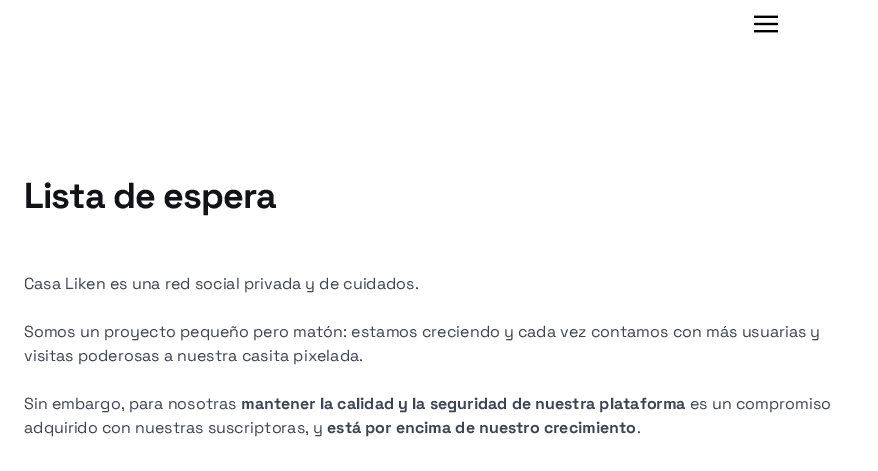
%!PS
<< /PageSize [878 471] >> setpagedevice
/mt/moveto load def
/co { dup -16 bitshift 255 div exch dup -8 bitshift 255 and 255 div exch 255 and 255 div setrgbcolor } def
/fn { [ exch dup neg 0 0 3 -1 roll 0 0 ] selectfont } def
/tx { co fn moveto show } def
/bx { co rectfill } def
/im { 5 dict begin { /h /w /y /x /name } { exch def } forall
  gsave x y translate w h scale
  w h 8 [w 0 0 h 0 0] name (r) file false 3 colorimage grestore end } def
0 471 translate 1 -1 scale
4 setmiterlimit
0 0 878 471 16#FFFFFF bx
(media/1.raw) 754 15 24 18 im
/SpaceGrotesk-Bold 36 fn
16#111317 co
24 208 mt -.9 0 (Lista de espera) ashow
(Casa Liken es una red social privada y de cuidados.) 24 289 /SpaceGrotesk-Regular 16 16#3D4452 tx
(Somos un proyecto pequeño pero matón: estamos creciendo y cada vez contamos con más usuarias y) 24 337 /SpaceGrotesk-Regular 16 16#3D4452 tx
(visitas poderosas a nuestra casita pixelada.) 24 361 /SpaceGrotesk-Regular 16 16#3D4452 tx
(Sin embargo, para nosotras) 24 409 /SpaceGrotesk-Regular 16 16#3D4452 tx
(mantener la calidad y la seguridad de nuestra plataforma) 241 409 /SpaceGrotesk-Bold 16 16#3D4452 tx
(es un compromiso) 690 409 /SpaceGrotesk-Regular 16 16#3D4452 tx
(adquirido con nuestras suscriptoras, y) 24 433 /SpaceGrotesk-Regular 16 16#3D4452 tx
(está por encima de nuestro crecimiento) 327 433 /SpaceGrotesk-Bold 16 16#3D4452 tx
(.) 637 433 /SpaceGrotesk-Regular 16 16#3D4452 tx
showpage
